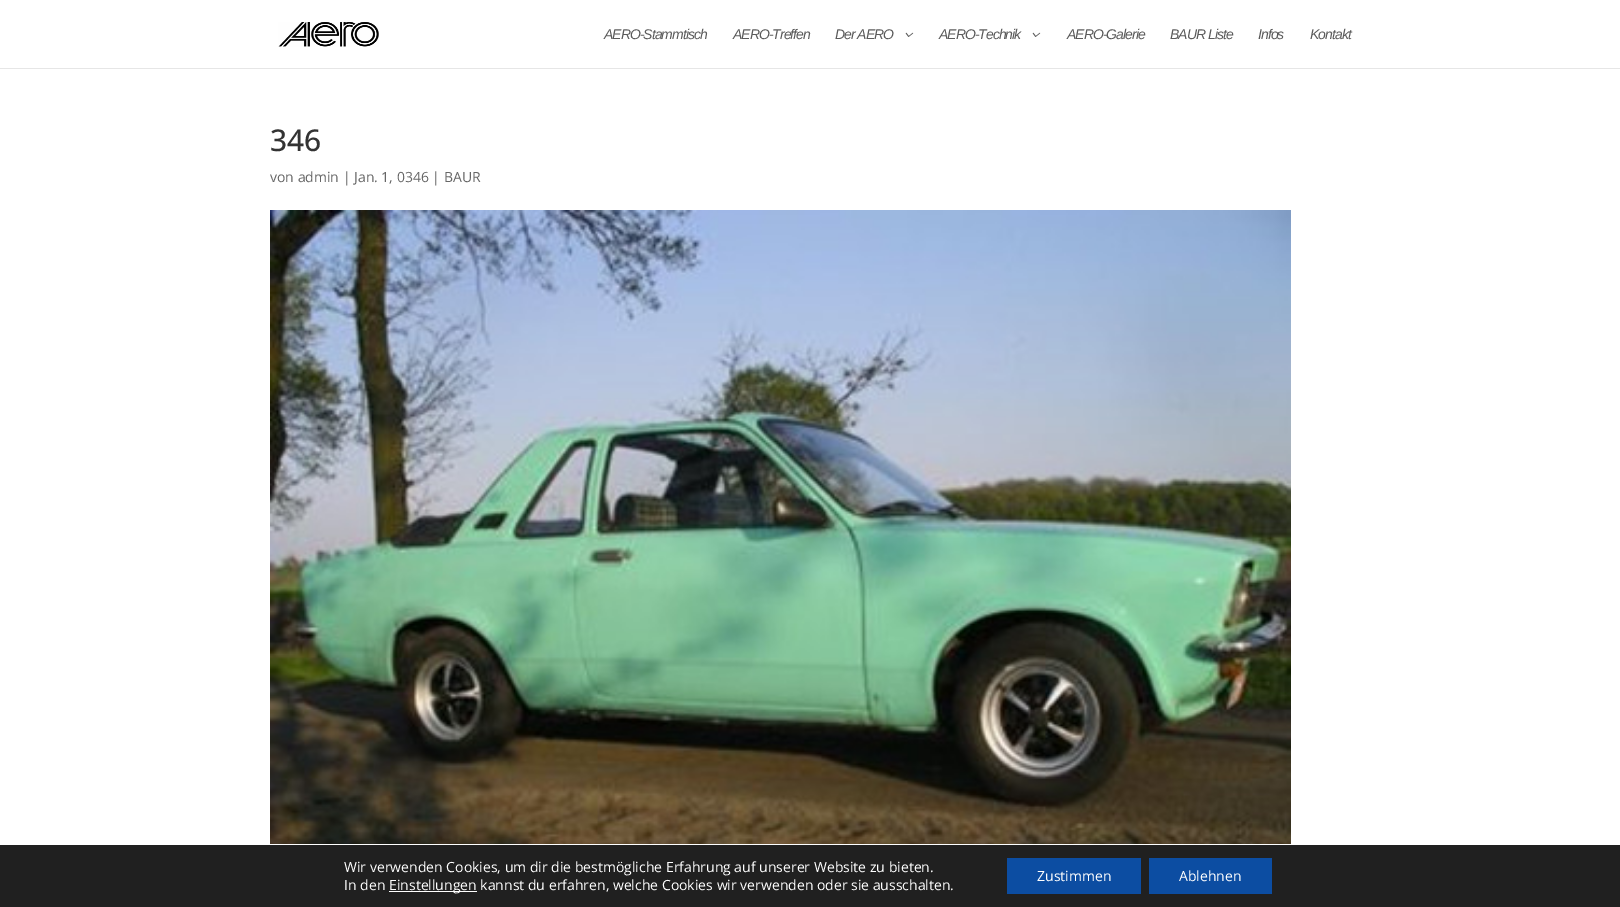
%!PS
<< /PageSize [1620 907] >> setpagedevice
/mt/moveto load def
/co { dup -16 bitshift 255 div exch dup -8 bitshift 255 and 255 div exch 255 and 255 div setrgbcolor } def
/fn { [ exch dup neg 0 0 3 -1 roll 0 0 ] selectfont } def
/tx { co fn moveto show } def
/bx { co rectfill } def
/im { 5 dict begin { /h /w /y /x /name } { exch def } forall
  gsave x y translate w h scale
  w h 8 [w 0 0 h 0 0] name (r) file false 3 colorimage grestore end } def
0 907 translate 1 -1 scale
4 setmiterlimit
0 0 1620 907 16#FFFFFF bx
0 68 1620 1 16#E6E6E6 bx
(media/1.raw) 278 22 101 25 im
(media/2.raw) 905 32 9 5 im
(media/2.raw) 1032 32 9 5 im
(media/3.raw) 270 210 1021 634 im
0 845 1620 62 16#202020 bx
389 891 88 1 16#FFFFFF bx
1007 858 134 36 16#0C4DA2 bx
1149 858 123 36 16#0C4DA2 bx
/LiberationSans-Italic 14 fn
16#5B5B5B co
604 39 mt -1 0 (AERO-Stammtisch) ashow
733 39 mt -1 0 (AERO-Treffen) ashow
835 39 mt -1 0 (Der AERO) ashow
939 39 mt -1 0 (AERO-Technik) ashow
1067 39 mt -1 0 (AERO-Galerie) ashow
1170 39 mt -1 0 (BAUR Liste) ashow
1258 39 mt -1 0 (Infos) ashow
1310 39 mt -1 0 (Kontakt) ashow
(346) 270 151 /OpenSans-Medium 30 16#333333 tx
(von admin | Jan. 1, 0346 | BAUR) 270 182 /OpenSans-Regular 14 16#666666 tx
(Wir verwenden Cookies, um dir die bestmögliche Erfahrung auf unserer Website zu bieten.) 344 872 /OpenSans-Regular 14 16#FFFFFF tx
(In den) 344 890 /OpenSans-Regular 14 16#FFFFFF tx
(Einstellungen kannst du erfahren, welche Cookies wir verwenden oder sie ausschalten.) 389 890 /OpenSans-Regular 14 16#FFFFFF tx
(Zustimmen) 1037 881 /OpenSans-Regular 14 16#FFFFFF tx
(Ablehnen) 1179 881 /OpenSans-Regular 14 16#FFFFFF tx
showpage
